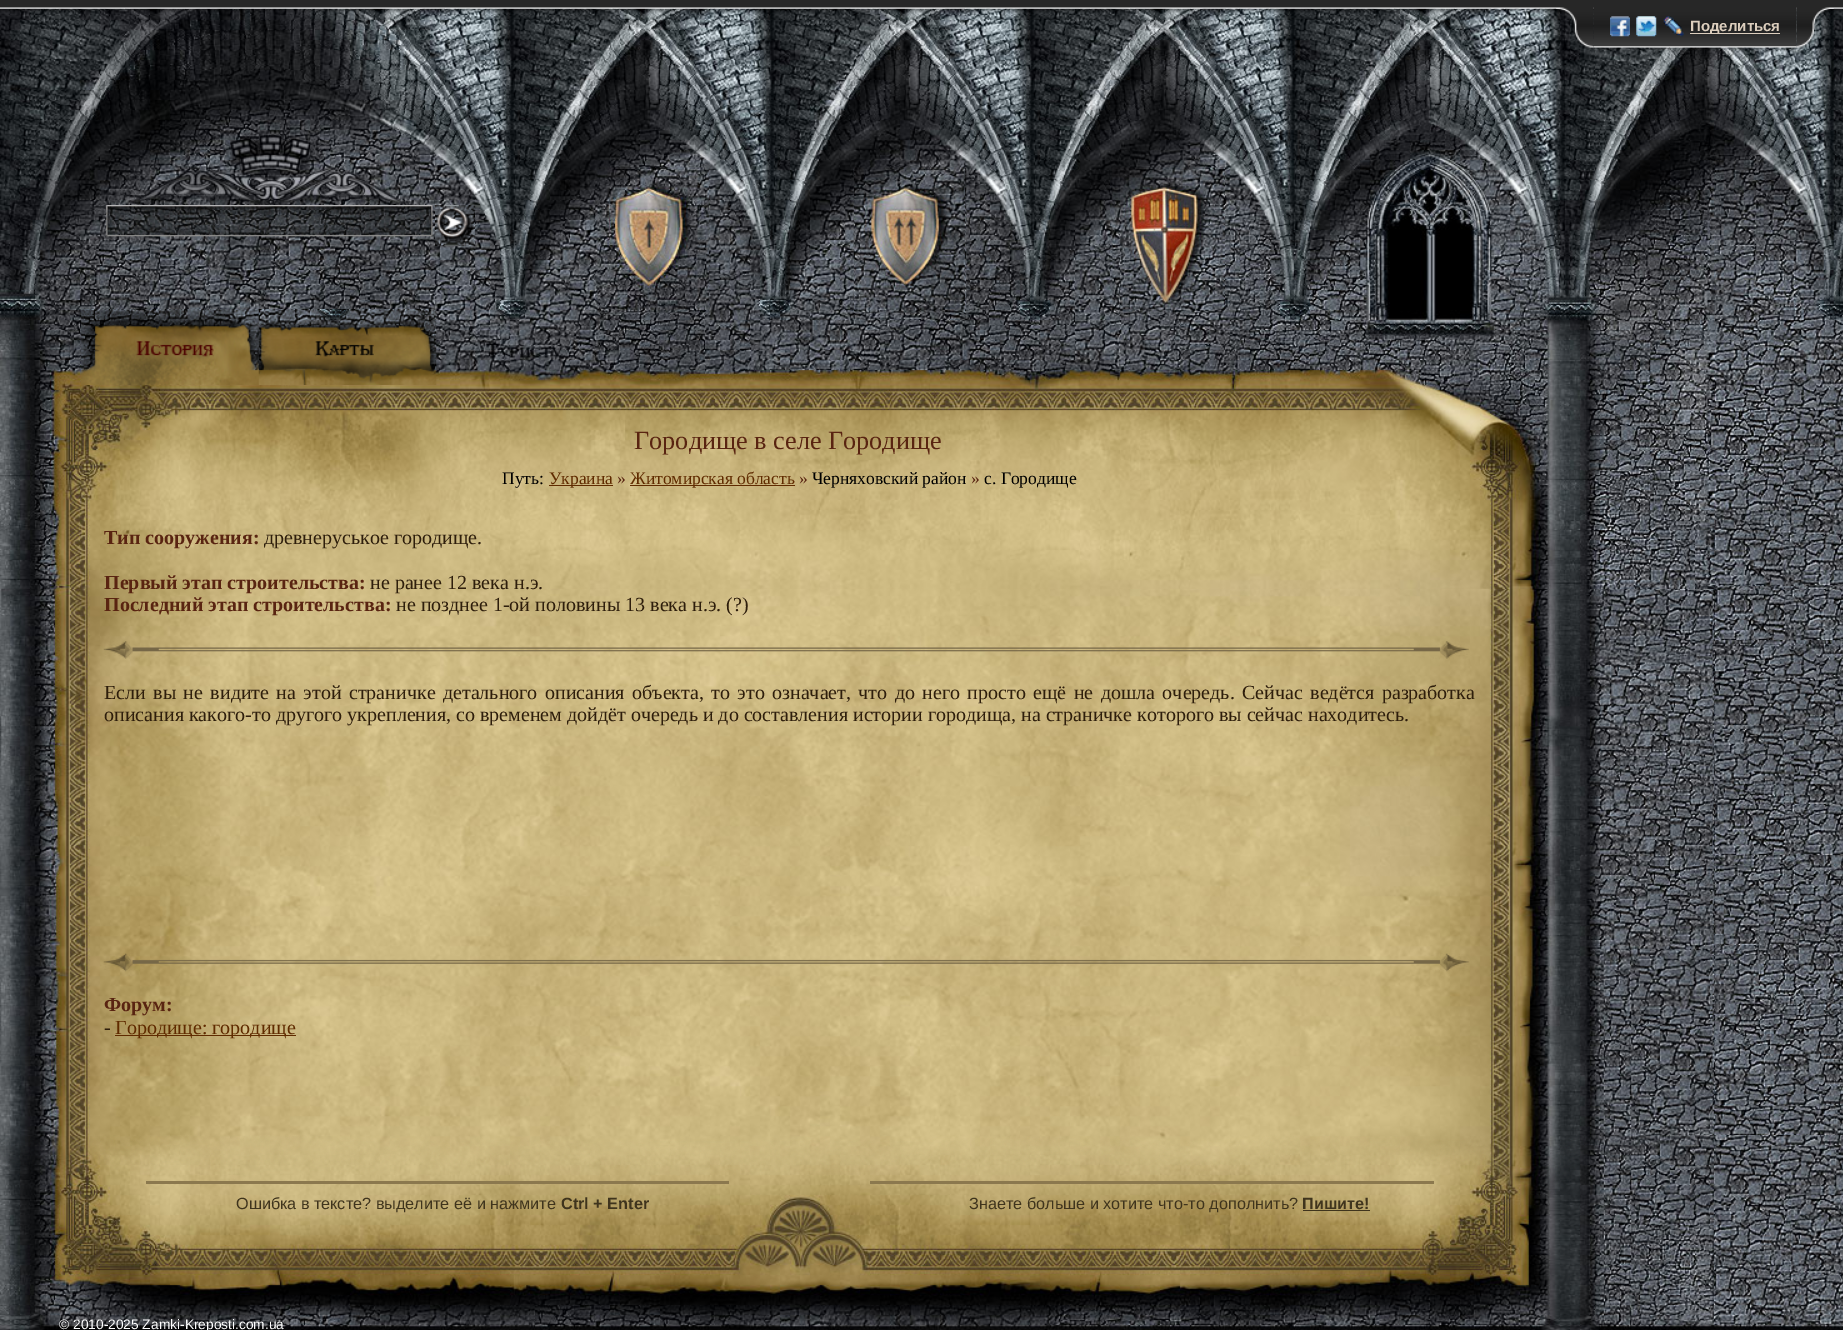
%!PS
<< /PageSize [1843 1330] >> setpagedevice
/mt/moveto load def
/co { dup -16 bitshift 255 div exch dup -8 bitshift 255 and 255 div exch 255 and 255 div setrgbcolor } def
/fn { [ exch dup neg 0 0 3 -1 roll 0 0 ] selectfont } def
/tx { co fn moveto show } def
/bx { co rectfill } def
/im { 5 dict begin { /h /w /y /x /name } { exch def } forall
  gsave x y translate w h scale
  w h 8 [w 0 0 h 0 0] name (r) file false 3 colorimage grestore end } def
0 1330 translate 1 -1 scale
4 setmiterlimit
0 0 1843 1330 16#FFFFFF bx
(media/8.raw) 1712 586 131 549 im
(media/10.raw) 1713 8 130 579 im
(media/11.raw) 1712 47 2 542 im
(media/9.raw) 1712 1135 131 195 im
(media/12.raw) 0 588 1713 622 im
(media/13.raw) 0 8 1714 581 im
(media/1.raw) 0 0 1843 13 im
(media/2.raw) 1556 7 38 43 im
(media/3.raw) 1593 7 204 45 im
(media/4.raw) 1610 16 20 21 im
(media/5.raw) 1636 16 21 21 im
(media/6.raw) 1663 16 21 21 im
1690 33 90 1 16#DCCEBD bx
(media/7.raw) 1796 7 38 45 im
(media/14.raw) 0 1135 1714 195 im
(media/15.raw) 106 205 327 32 im
(media/16.raw) 435 205 40 42 im
(media/17.raw) 597 167 112 146 im
(media/18.raw) 853 167 114 146 im
(media/19.raw) 1112 167 113 146 im
(media/20.raw) 81 308 178 77 im
(media/21.raw) 258 308 179 77 im
549 485 64 1 16#602B00 bx
630 485 165 1 16#602B00 bx
(media/22.raw) 103 641 1366 18 im
(media/23.raw) 103 953 1366 19 im
115 1035 181 1 16#602B00 bx
146 1181 583 3 16#8B784E bx
870 1181 564 3 16#8B784E bx
1303 1210 67 1 16#3F341D bx
(Поделиться) 1690 31 /LiberationSans-Bold 15 16#DCCEBD tx
(Городище в селе Городище) 634 449 /LiberationSerif-Regular 26.25 16#592411 tx
(Путь:) 502 484 /LiberationSerif-Regular 17.5 16#000000 tx
(Украина) 549 484 /LiberationSerif-Regular 17.5 16#602B00 tx
(») 617 484 /LiberationSerif-Regular 17.5 16#592411 tx
(Житомирская область) 630 484 /LiberationSerif-Regular 17.5 16#602B00 tx
(») 799 484 /LiberationSerif-Regular 17.5 16#592411 tx
(Черняховский район) 812 484 /LiberationSerif-Regular 17.5 16#000000 tx
(») 971 484 /LiberationSerif-Regular 17.5 16#592411 tx
(с. Городище) 984 484 /LiberationSerif-Regular 17.5 16#000000 tx
(Тип сооружения:) 104 544 /LiberationSerif-Bold 20 16#592411 tx
(древнеруськое городище.) 264 544 /LiberationSerif-Regular 20 16#2E1E0C tx
(Первый этап строительства:) 104 589 /LiberationSerif-Bold 20 16#592411 tx
(не ранее 12 века н.э.) 370 589 /LiberationSerif-Regular 20 16#2E1E0C tx
(Последний этап строительства:) 104 611 /LiberationSerif-Bold 20 16#592411 tx
(не позднее 1-ой половины 13 века н.э. \(?\)) 396 611 /LiberationSerif-Regular 20 16#2E1E0C tx
104 699 mt 2.4 0 32 (Если вы не видите на этой страничке детального описания объекта, то это означает, что до него просто ещё не дошла очередь. Сейчас ведётся разработка) widthshow
(описания какого-то другого укрепления, со временем дойдёт очередь и до составления истории городища, на страничке которого вы сейчас находитесь.) 104 721 /LiberationSerif-Regular 20 16#2E1E0C tx
(Форум:) 104 1011 /LiberationSerif-Bold 20 16#592411 tx
(-) 104 1034 /LiberationSerif-Regular 20 16#2E1E0C tx
(Городище: городище) 115 1034 /LiberationSerif-Regular 20 16#602B00 tx
(Ошибка в тексте? выделите её и нажмите) 236 1209 /LiberationSans-Regular 16.25 16#3F341D tx
(Ctrl + Enter) 561 1209 /LiberationSans-Bold 16.25 16#3F341D tx
(Знаете больше и хотите что-то дополнить?) 969 1209 /LiberationSans-Regular 16.25 16#3F341D tx
(Пишите!) 1302 1209 /LiberationSans-Bold 16.25 16#3F341D tx
(© 2010-2025 Zamki-Kreposti.com.ua) 59 1329 /LiberationSans-Regular 13.75 16#FFFFFF tx
showpage
